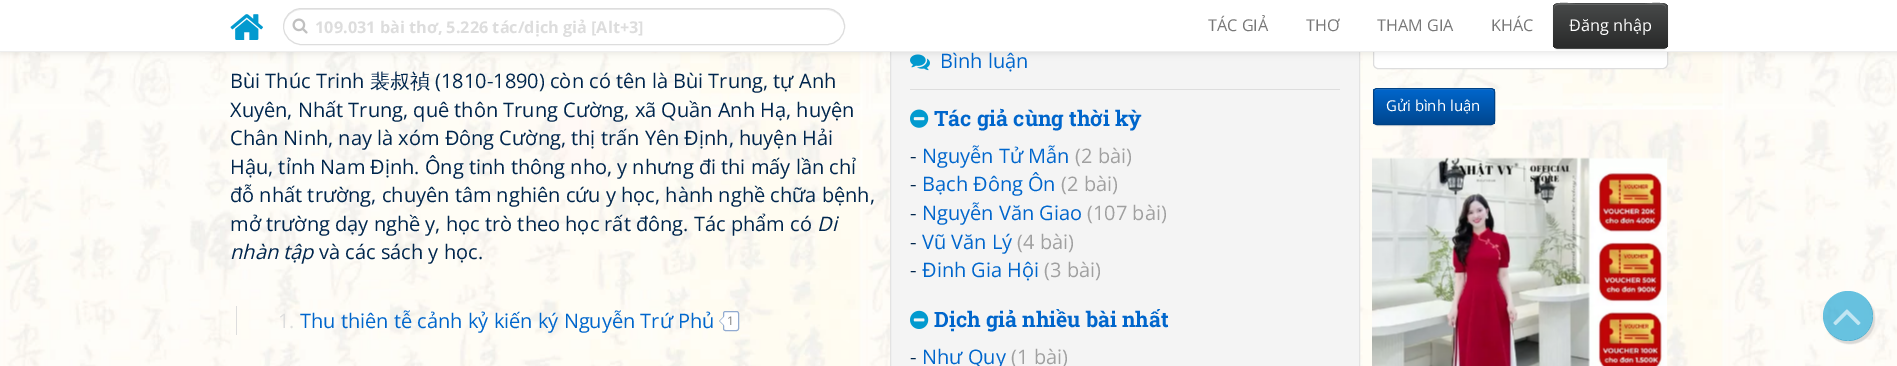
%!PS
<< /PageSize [1897 366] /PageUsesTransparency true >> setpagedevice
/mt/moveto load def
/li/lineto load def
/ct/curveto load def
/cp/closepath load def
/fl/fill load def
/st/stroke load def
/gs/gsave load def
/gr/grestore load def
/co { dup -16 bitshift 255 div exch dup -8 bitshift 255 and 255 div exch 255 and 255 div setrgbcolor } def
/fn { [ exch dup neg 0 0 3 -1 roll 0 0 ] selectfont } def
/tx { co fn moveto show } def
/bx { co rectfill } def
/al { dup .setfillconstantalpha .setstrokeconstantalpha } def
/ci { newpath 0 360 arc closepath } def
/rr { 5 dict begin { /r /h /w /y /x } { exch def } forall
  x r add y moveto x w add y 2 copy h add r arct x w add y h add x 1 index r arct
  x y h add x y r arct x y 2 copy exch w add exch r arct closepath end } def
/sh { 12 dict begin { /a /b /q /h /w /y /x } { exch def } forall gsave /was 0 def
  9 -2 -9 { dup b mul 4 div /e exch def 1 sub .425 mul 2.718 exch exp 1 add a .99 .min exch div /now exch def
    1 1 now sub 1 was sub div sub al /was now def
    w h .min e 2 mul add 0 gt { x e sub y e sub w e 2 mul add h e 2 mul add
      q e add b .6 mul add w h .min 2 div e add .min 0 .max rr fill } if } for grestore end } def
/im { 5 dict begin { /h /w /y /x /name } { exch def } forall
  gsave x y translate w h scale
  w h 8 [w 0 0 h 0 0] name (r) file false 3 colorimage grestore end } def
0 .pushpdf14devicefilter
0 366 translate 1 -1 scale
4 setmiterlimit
0 0 1897 366 16#FFFFFF bx
(media/1.raw) 0 52 1897 314 im
891 52 468 314 16#F4F4F4 bx
16#E3E3E3 co
890.5 -.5 469 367 rectstroke
(media/5.raw) 910 54 20 17 im
16#FFFFFF co
1373.5 24.5 294 44 4.5 rr gs fl gr
16#DDDDDD co
st
16#000000 co
0 1 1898 53 0 3 .07 sh
0 0 1897 51 16#FFFFFF bx
0 51 1897 1 16#EEEEEE bx
(media/2.raw) 230 14 33 26 im
16#ECECEC co
301 10 mt 826 10 li 836 10 844 18 844 27 ct 844 21 841 15 836 12 ct 833 10 830 9 826 9 ct 302 9 li 292 9 284 17 284 27 ct 284 18 292 10 301 10 ct cp fl
16#DDDDDD co
283.5 8.5 561 36 18 rr st
(media/3.raw) 292 18 16 16 im
16#000000 co
1553 4 115 46 5 .5 .07 sh
16#474949 co
1553 3 115 46 5 rr fl
gs
1553 3 115 46 5 rr clip newpath
gs 1553 4 mt 1668 4 li 1668 48 li 1553 48 li cp clip newpath
<< /ShadingType 2 /ColorSpace /DeviceRGB /Coords [1610 3.7 1610 48] /Extend [true true] /Function << /FunctionType 2 /Domain [0 1] /C0 [.278 .286 .286] /C1 [.161 .165 .165] /N 1 >> >> shfill gr
gr
16#626464 co
1558 5 mt 1662 5 li 1665 5 1666 7 1666 9 ct 1666 -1 1648 4 1645 4 ct 1575 4 li 1572 4 1554 -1 1554 9 ct 1554 7 1555 5 1558 5 ct cp fl
gs
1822 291 mt 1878 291 li 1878 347 li 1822 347 li cp 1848 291 mt 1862 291 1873 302 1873 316 ct 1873 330 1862 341 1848 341 ct 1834 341 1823 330 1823 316 ct 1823 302 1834 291 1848 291 ct cp eoclip newpath
16#C0C0C0 co
1825 294 50 50 25 .5 .6 sh
gr
0.6 al
16#029ACF co
1848 316 25 ci fl
1 al
(media/4.raw) 1833 309 28 17 im
910 89 430 1 16#DDDDDD bx
(media/6.raw) 910 109 19 19 im
(media/7.raw) 910 310 19 19 im
236 306 1 29 16#DDDDDD bx
16#FFFFFF co
723.5 311.5 15 19 2 rr gs fl gr
16#92ABD0 co
st
724 316 mt 724 326 li 719 321 li cp fl
16#FFFFFF co
725 316 mt 725 326 li 720 321 li cp fl
16#000000 co
1373 89 122 37 4 .5 .07 sh
gs
1373 88 122 37 4 rr clip newpath
gs 1373 89 mt 1495 89 li 1495 124 li 1373 124 li cp clip newpath
<< /ShadingType 2 /ColorSpace /DeviceRGB /Coords [1434 89 1434 124] /Extend [true true] /Function << /FunctionType 2 /Domain [0 1] /C0 [0 .4 .8] /C1 [0 .278 .561] /N 1 >> >> shfill gr
gr
16#267DD3 co
1376 90 mt 1491 90 li 1493 90 1494 91 1494 92 ct 1494 90 1493 89 1492 89 ct 1376 89 li 1375 89 1374 90 1374 92 ct 1374 91 1375 90 1376 90 ct cp fl
16#004285 co
1373.5 88.5 121 36 3.5 rr st
(media/8.raw) 1372 157 295 209 im
(109.031 bài thơ, 5.226 tác/dịch giả [Alt+3]) 315 33 /OpenSans-Bold 16.25 16#DDDDDD tx
(TÁC GIẢ) 1208 31 /OpenSans-Regular 16.25 16#777777 tx
(THƠ) 1306 31 /OpenSans-Regular 16.25 16#777777 tx
(THAM GIA) 1377 31 /OpenSans-Regular 16.25 16#777777 tx
(KHÁC) 1491 31 /OpenSans-Regular 16.25 16#777777 tx
(Đăng nhập) 1569 31 /OpenSans-Regular 16.25 16#FFFFFF tx
(Bùi Thúc Trinh) 230 88 /OpenSans-Regular 20 16#00264D tx
(裴叔禎) 370 88 /WenQuanYiZenHei-Medium 20 16#00264D tx
(\(1810-1890\) còn có tên là Bùi Trung, tự Anh) 435 88 /OpenSans-Regular 20 16#00264D tx
(Xuyên, Nhất Trung, quê thôn Trung Cường, xã Quần Anh Hạ, huyện) 230 117 /OpenSans-Regular 20 16#00264D tx
(Chân Ninh, nay là xóm Đông Cường, thị trấn Yên Định, huyện Hải) 230 145 /OpenSans-Regular 20 16#00264D tx
(Hậu, tỉnh Nam Định. Ông tinh thông nho, y nhưng đi thi mấy lần chỉ) 230 174 /OpenSans-Regular 20 16#00264D tx
(đỗ nhất trường, chuyên tâm nghiên cứu y học, hành nghề chữa bệnh,) 230 202 /OpenSans-Regular 20 16#00264D tx
(mở trường dạy nghề y, học trò theo học rất đông. Tác phẩm có) 230 231 /OpenSans-Regular 20 16#00264D tx
(Di) 817 231 /OpenSans-Italic 20 16#00264D tx
(nhàn tập) 230 259 /OpenSans-Italic 20 16#00264D tx
(và các sách y học.) 319 259 /OpenSans-Regular 20 16#00264D tx
(Bình luận) 940 68 /OpenSans-Regular 20 16#0066CC tx
(Tác giả cùng thời kỳ) 934 126 /RobotoSlab-Bold 21.25 16#0066CC tx
(-) 910 163 /OpenSans-Regular 20 16#00264D tx
(Nguyễn Tử Mẫn) 922 163 /OpenSans-Regular 20 16#0066CC tx
(\(2 bài\)) 1075 163 /OpenSans-Regular 20 16#A0A0A0 tx
(-) 910 191 /OpenSans-Regular 20 16#00264D tx
(Bạch Đông Ôn) 922 191 /OpenSans-Regular 20 16#0066CC tx
(\(2 bài\)) 1061 191 /OpenSans-Regular 20 16#A0A0A0 tx
(-) 910 220 /OpenSans-Regular 20 16#00264D tx
(Nguyễn Văn Giao) 922 220 /OpenSans-Regular 20 16#0066CC tx
(\(107 bài\)) 1087 220 /OpenSans-Regular 20 16#A0A0A0 tx
(-) 910 249 /OpenSans-Regular 20 16#00264D tx
(Vũ Văn Lý) 922 249 /OpenSans-Regular 20 16#0066CC tx
(\(4 bài\)) 1017 249 /OpenSans-Regular 20 16#A0A0A0 tx
(-) 910 277 /OpenSans-Regular 20 16#00264D tx
(Đinh Gia Hội) 922 277 /OpenSans-Regular 20 16#0066CC tx
(\(3 bài\)) 1044 277 /OpenSans-Regular 20 16#A0A0A0 tx
(Dịch giả nhiều bài nhất) 934 327 /RobotoSlab-Bold 21.25 16#0066CC tx
(-) 910 364 /OpenSans-Regular 20 16#00264D tx
(Như Quy) 922 364 /OpenSans-Regular 20 16#0066CC tx
(\(1 bài\)) 1011 364 /OpenSans-Regular 20 16#A0A0A0 tx
(1.) 278 328 /OpenSans-Regular 20 16#DDDDDD tx
(Thu thiên tễ cảnh kỷ kiến ký Nguyễn Trứ Phủ) 300 328 /OpenSans-Regular 20 16#0066CC tx
(1) 727 325 /OpenSans-Regular 12 16#808080 tx
(Gửi bình luận) 1386 111 /OpenSans-Regular 15 16#FFFFFF tx
.poppdf14devicefilter showpage
